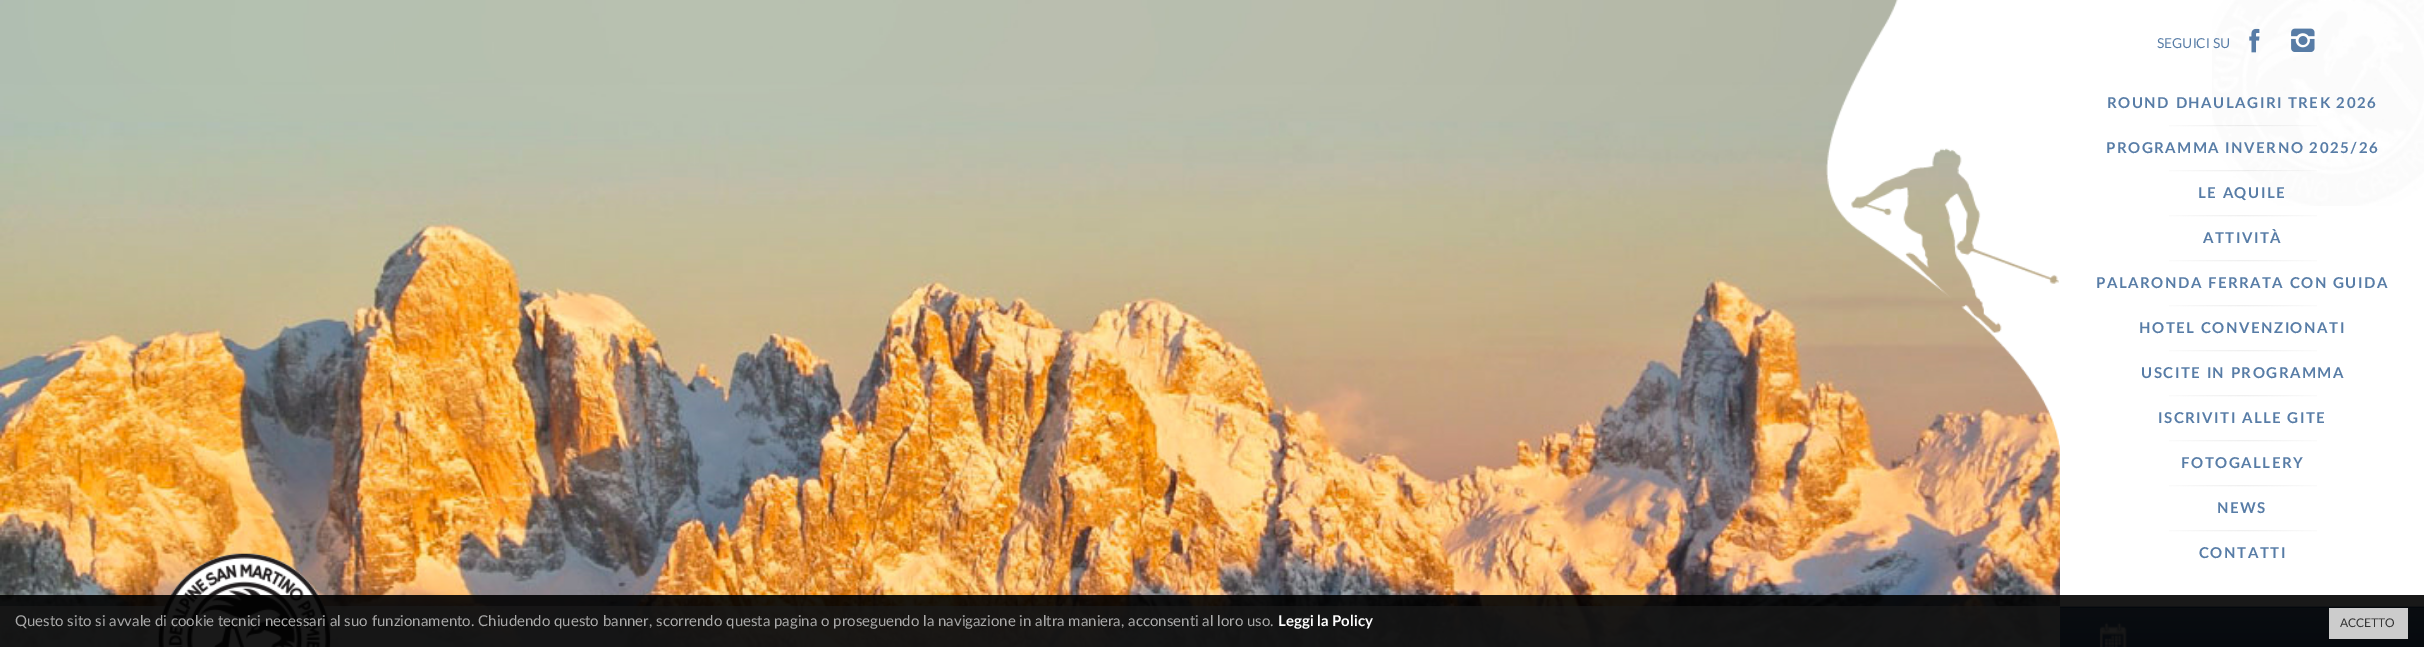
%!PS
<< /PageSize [2424 647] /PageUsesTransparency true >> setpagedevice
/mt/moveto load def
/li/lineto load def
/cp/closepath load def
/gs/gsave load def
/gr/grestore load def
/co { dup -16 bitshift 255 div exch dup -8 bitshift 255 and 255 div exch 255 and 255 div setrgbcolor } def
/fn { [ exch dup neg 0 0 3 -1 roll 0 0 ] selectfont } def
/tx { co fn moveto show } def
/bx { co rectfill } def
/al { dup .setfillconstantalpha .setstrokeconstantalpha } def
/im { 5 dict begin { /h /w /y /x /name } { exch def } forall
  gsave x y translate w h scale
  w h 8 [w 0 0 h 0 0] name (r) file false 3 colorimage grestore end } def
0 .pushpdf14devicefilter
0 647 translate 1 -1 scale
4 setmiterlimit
0 0 2424 647 16#FFFFFF bx
(media/1.raw) 0 0 2060 647 im
(media/2.raw) 1826 0 234 456 im
(media/5.raw) 2212 0 212 206 im
(media/3.raw) 2249 28 11 25 im
(media/4.raw) 2291 28 24 24 im
(media/6.raw) 2169 125 148 2 im
(media/7.raw) 2169 170 148 2 im
(media/8.raw) 2169 215 148 2 im
(media/8.raw) 2169 260 148 2 im
(media/8.raw) 2169 305 148 2 im
(media/8.raw) 2169 350 148 2 im
(media/8.raw) 2169 395 148 2 im
(media/8.raw) 2169 440 148 2 im
(media/8.raw) 2169 485 148 2 im
(media/8.raw) 2169 530 148 2 im
gs 2060 607 mt 2424 607 li 2424 608 li 2060 608 li cp clip newpath
<< /ShadingType 2 /ColorSpace /DeviceRGB /Coords [2243 545 2243 608] /Extend [true true] /Function << /FunctionType 2 /Domain [0 1] /C0 [.373 .506 .651] /C1 [.165 .302 .51] /N 1 >> >> shfill gr
gs 2060 608 mt 2424 608 li 2424 647 li 2060 647 li cp clip newpath
<< /ShadingType 2 /ColorSpace /DeviceRGB /Coords [2243 608 2243 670] /Extend [true true] /Function << /FunctionType 2 /Domain [0 1] /C0 [.373 .506 .651] /C1 [.165 .302 .51] /N 1 >> >> shfill gr
2060 606 364 1 16#A9BCD0 bx
(media/9.raw) 2099 622 28 25 im
0.7 al
0 606 2060 41 16#FFFFFF bx
1 al
(media/10.raw) 158 553 173 94 im
0.9 al
0 595 2424 52 16#000000 bx
1 al
2329 608 79 31 16#CCCCCC bx
(SEGUICI SU) 2157 48 /Lato-Regular 13.75 16#577CA6 tx
/Lato-Bold 15 fn
2107 108 mt 1.5 0 (ROUND DHAULAGIRI TREK 2026) ashow
2106 153 mt 1.5 0 (PROGRAMMA INVERNO 2025/26) ashow
2198 198 mt 1.5 0 (LE AQUILE) ashow
2203 243 mt 1.5 0 (ATTIVITÀ) ashow
2096 288 mt 1.5 0 (PALARONDA FERRATA CON GUIDA) ashow
2139 333 mt 1.5 0 (HOTEL CONVENZIONATI) ashow
2141 378 mt 1.5 0 (USCITE IN PROGRAMMA) ashow
2158 423 mt 1.5 0 (ISCRIVITI ALLE GITE) ashow
2181 468 mt 1.5 0 (FOTOGALLERY) ashow
2217 513 mt 1.5 0 (NEWS) ashow
2199 558 mt 1.5 0 (CONTATTI) ashow
(Questo sito si avvale di cookie tecnici necessari al suo funzionamento. Chiudendo questo banner, scorrendo questa pagina o proseguendo la navigazione in altra maniera, acconsenti al loro uso.) 15 626 /Lato-Regular 15 16#A9A9A9 tx
(Leggi la Policy) 1278 626 /Lato-Bold 15 16#FFFFFF tx
(ACCETTO) 2340 627 /Lato-Regular 12 16#333333 tx
.poppdf14devicefilter showpage
